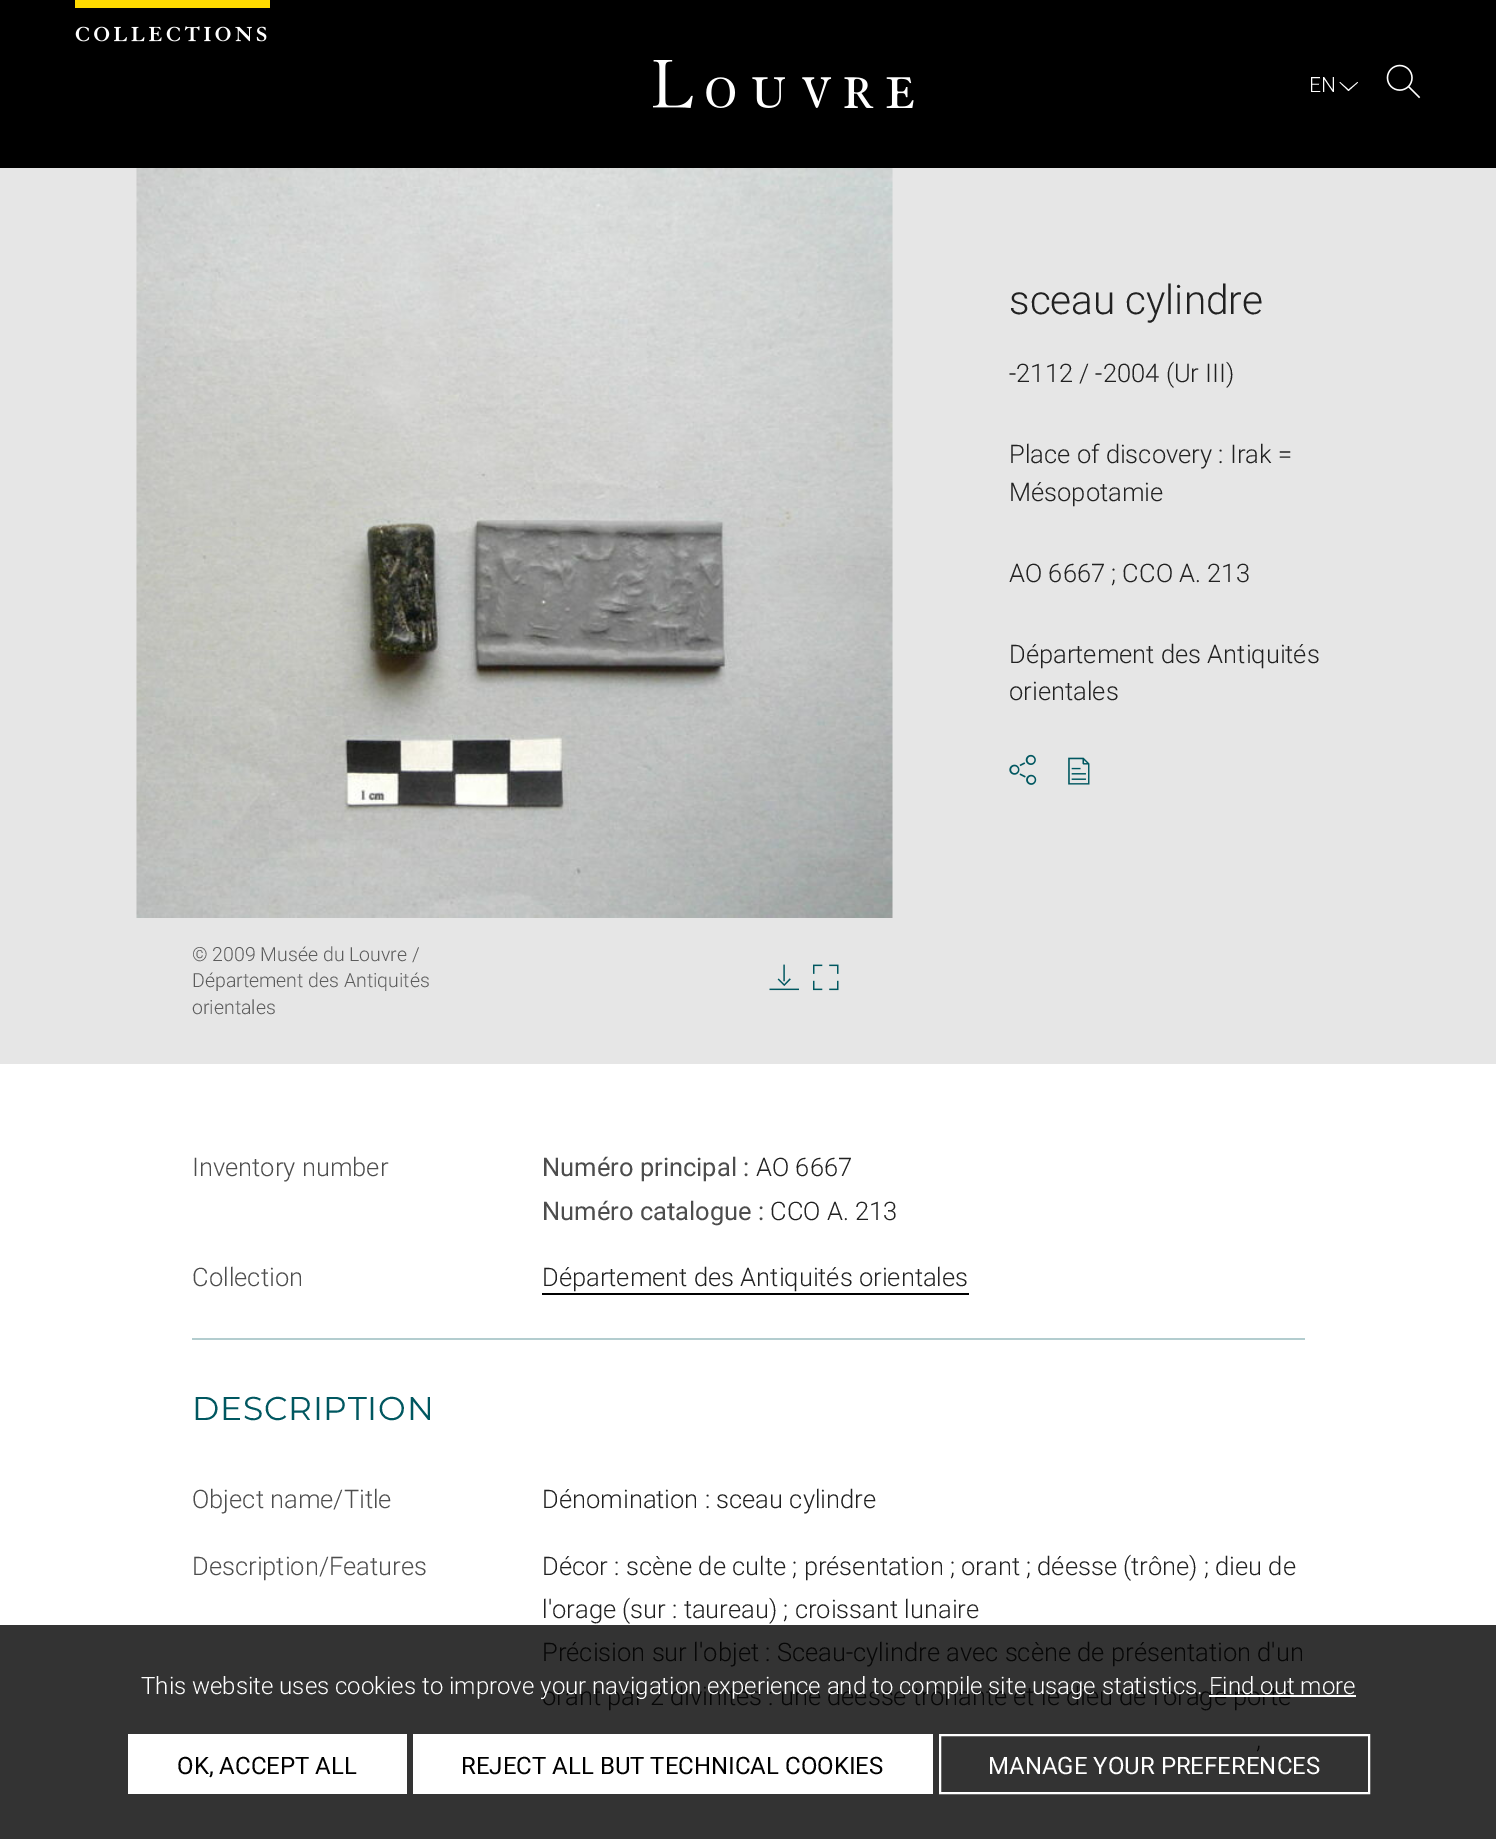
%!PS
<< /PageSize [1496 1839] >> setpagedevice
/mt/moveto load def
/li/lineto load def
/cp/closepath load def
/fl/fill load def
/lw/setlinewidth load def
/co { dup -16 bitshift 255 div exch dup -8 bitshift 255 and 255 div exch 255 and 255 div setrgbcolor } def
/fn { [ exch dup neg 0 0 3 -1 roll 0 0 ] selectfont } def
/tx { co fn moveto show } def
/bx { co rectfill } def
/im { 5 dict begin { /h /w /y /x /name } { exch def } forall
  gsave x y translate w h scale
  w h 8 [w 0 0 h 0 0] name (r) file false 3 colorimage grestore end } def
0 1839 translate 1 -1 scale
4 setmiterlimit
0 0 1496 1839 16#FFFFFF bx
0 1625 1496 214 16#333333 bx
0 0 1496 168 16#000000 bx
75 0 195 8 16#FFDA00 bx
(media/1.raw) 75 26 192 16 im
(media/2.raw) 653 60 261 48 im
16#FFFFFF co
1348.5 91 mt 1339.5 82.5 li 1340 82 li 1348.5 89.5 li 1357.5 82 li 1358 82.5 li cp fl
(media/3.raw) 1386 64 35 35 im
0 168 1496 896 16#E6E6E6 bx
(media/4.raw) 1009 754 28 31 im
(media/5.raw) 1068 757 22 28 im
(media/6.raw) 136 168 757 750 im
(media/7.raw) 769 964 30 27 im
(media/8.raw) 813 964 26 27 im
192 1338 1113 2 16#B3CDCF bx
542 1293 427 2 16#000000 bx
128 1734 279 60 16#FFFFFF bx
413 1734 520 60 16#FFFFFF bx
2 lw
940 1735 429 58 rectstroke
(EN) 1309 92 /Roboto-Light 21 16#FFFFFF tx
(sceau cylindre) 1009 314 /Roboto-Light 40.5 16#212121 tx
(-2112 / -2004 \(Ur III\)) 1009 382 /Roboto-Light 25.5 16#212121 tx
(Place of discovery : Irak =) 1009 463 /Roboto-Light 25.5 16#212121 tx
(Mésopotamie) 1009 501 /Roboto-Light 25.5 16#212121 tx
(AO 6667 ; CCO A. 213) 1009 582 /Roboto-Light 25.5 16#212121 tx
(Département des Antiquités) 1009 663 /Roboto-Light 25.5 16#212121 tx
(orientales) 1009 700 /Roboto-Light 25.5 16#212121 tx
(© 2009 Musée du Louvre /) 192 961 /Roboto-Light 19.5 16#5C5C5C tx
(Département des Antiquités) 192 987 /Roboto-Light 19.5 16#5C5C5C tx
(orientales) 192 1014 /Roboto-Light 19.5 16#5C5C5C tx
(Inventory number) 192 1176 /Roboto-Light 25.5 16#4D4D4D tx
(Numéro principal :) 542 1176 /Roboto-Regular 25.5 16#4D4D4D tx
(AO 6667) 756 1176 /Roboto-Light 25.5 16#212121 tx
(Numéro catalogue :) 542 1220 /Roboto-Regular 25.5 16#4D4D4D tx
(CCO A. 213) 770 1220 /Roboto-Light 25.5 16#212121 tx
(Collection) 192 1286 /Roboto-Light 25.5 16#4D4D4D tx
(Département des Antiquités orientales) 542 1286 /Roboto-Light 25.5 16#212121 tx
/Montserrat-Regular 33 fn
16#005760 co
192 1420 mt .75 0 (DESCRIPTION) ashow
(Object name/Title) 192 1508 /Roboto-Light 25.5 16#4D4D4D tx
(Dénomination : sceau cylindre) 542 1508 /Roboto-Light 25.5 16#212121 tx
(Description/Features) 192 1575 /Roboto-Light 25.5 16#4D4D4D tx
(Décor : scène de culte ; présentation ; orant ; déesse \(trône\) ; dieu de) 542 1575 /Roboto-Light 25.5 16#212121 tx
(l'orage \(sur : taureau\) ; croissant lunaire) 542 1618 /Roboto-Light 25.5 16#212121 tx
(Précision sur l'objet : Sceau-cylindre avec scène de présentation d'un) 542 1661 /Roboto-Light 25.5 16#070707 tx
(orant par 2 divinités : une déesse trônante et le dieu de l'orage porté) 542 1705 /Roboto-Light 25.5 16#070707 tx
(,) 1256 1748 /Roboto-Light 25.5 16#070707 tx
(This website uses cookies to improve your navigation experience and to compile site usage statistics. Find out more) 141 1694 /Roboto-Light 24 16#FFFFFF tx
1209 1695 147 2 16#FFFFFF bx
(OK, ACCEPT ALL) 177 1774 /Roboto-Regular 24 16#000000 tx
(REJECT ALL BUT TECHNICAL COOKIES) 461 1774 /Roboto-Regular 24 16#000000 tx
(MANAGE YOUR PREFERENCES) 988 1774 /Roboto-Regular 24 16#FFFFFF tx
showpage
